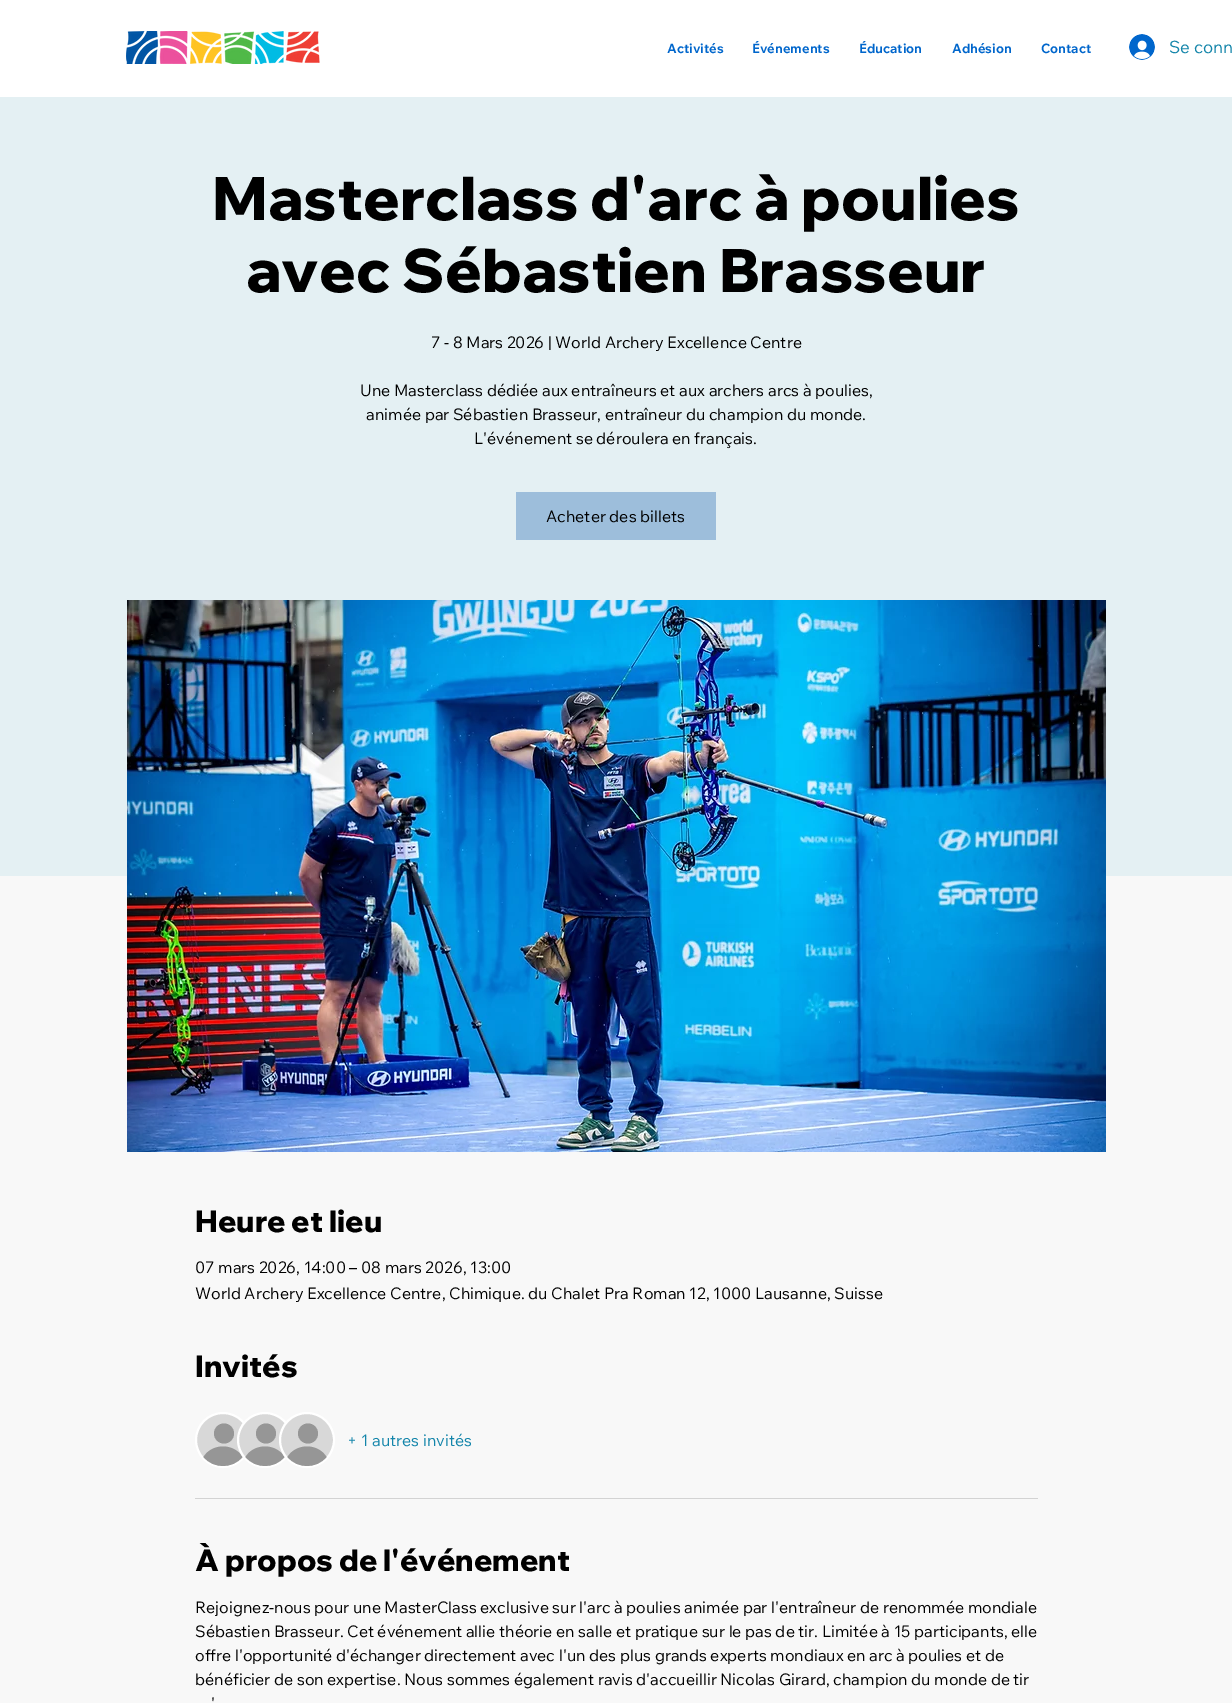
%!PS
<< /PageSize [1232 1703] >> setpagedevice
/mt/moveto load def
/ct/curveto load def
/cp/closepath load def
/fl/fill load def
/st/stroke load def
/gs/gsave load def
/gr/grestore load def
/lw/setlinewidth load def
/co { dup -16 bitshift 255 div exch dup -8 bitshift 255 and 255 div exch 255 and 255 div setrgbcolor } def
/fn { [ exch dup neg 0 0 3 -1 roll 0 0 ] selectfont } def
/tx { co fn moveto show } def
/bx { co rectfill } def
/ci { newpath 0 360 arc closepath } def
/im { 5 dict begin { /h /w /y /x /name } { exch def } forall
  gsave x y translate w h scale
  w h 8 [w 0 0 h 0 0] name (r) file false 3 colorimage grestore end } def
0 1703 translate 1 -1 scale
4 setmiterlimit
0 0 1232 1703 16#FFFFFF bx
(media/1.raw) 126 31 194 33 im
(media/2.raw) 1129 34 26 26 im
0 97 1232 779 16#E4F0F3 bx
516 492 200 48 16#9DBEDB bx
0 876 1232 827 16#F8F8F8 bx
(media/3.raw) 127 600 979 552 im
16#D8D8D8 co
223 1440 27 ci gs fl gr
16#FFFFFF co
2 lw
st
16#969696 co
224 1433.5 10 ci fl
242.5 1457 mt 232.5 1469 213.5 1469 203.5 1457 ct 212 1443 234 1443 242.5 1457 ct cp fl
16#D8D8D8 co
265 1440 27 ci gs fl gr
16#FFFFFF co
st
16#969696 co
266 1433.5 10 ci fl
284.5 1457 mt 274.5 1469 255.5 1469 245.5 1457 ct 254 1443 276 1443 284.5 1457 ct cp fl
16#D8D8D8 co
307 1440 27 ci gs fl gr
16#FFFFFF co
st
16#969696 co
308 1433.5 10 ci fl
326.5 1457 mt 316.5 1469 297.5 1469 287.5 1457 ct 296 1443 318 1443 326.5 1457 ct cp fl
195 1498 843 1 16#D3D3D3 bx
(Activités) 667 53 /WixMadeforText-Bold 13 16#0066CC tx
(Événements) 752 53 /WixMadeforText-Bold 13 16#0066CC tx
(Éducation) 859 53 /WixMadeforText-Bold 13 16#0066CC tx
(Adhésion) 952 53 /WixMadeforText-Bold 13 16#0066CC tx
(Contact) 1041 53 /WixMadeforText-Bold 13 16#0066CC tx
(Se conn) 1169 53 /WixMadeforText-Regular 17 16#1385AA tx
(Masterclass d'arc à poulies) 212 220 /WixMadeforDisplay-ExtraBold 60 16#000000 tx
(avec Sébastien Brasseur) 246 292 /WixMadeforDisplay-ExtraBold 60 16#000000 tx
(7 - 8 Mars 2026 | World Archery Excellence Centre) 431 348 /WixMadeforText-Regular 16 16#000000 tx
(Une Masterclass dédiée aux entraîneurs et aux archers arcs à poulies,) 360 396 /WixMadeforText-Regular 16 16#000000 tx
(animée par Sébastien Brasseur, entraîneur du champion du monde.) 366 420 /WixMadeforText-Regular 16 16#000000 tx
(L'événement se déroulera en français.) 474 444 /WixMadeforText-Regular 16 16#000000 tx
(Acheter des billets) 546 522 /WixMadeforText-Regular 16 16#000000 tx
(Heure et lieu) 195 1232 /WixMadeforDisplay-ExtraBold 30 16#000000 tx
(07 mars 2026, 14:00 – 08 mars 2026, 13:00) 195 1273 /WixMadeforText-Regular 16 16#000000 tx
(World Archery Excellence Centre, Chimique. du Chalet Pra Roman 12, 1000 Lausanne, Suisse) 195 1299 /WixMadeforText-Regular 16 16#000000 tx
(Invités) 195 1377 /WixMadeforDisplay-ExtraBold 30 16#000000 tx
(+ 1 autres invités) 347 1446 /WixMadeforText-Regular 16 16#1385AA tx
(À propos de l'événement) 195 1571 /WixMadeforDisplay-ExtraBold 30 16#000000 tx
(Rejoignez-nous pour une MasterClass exclusive sur l'arc à poulies animée par l'entraîneur de renommée mondiale) 195 1613 /WixMadeforText-Regular 16 16#000000 tx
(Sébastien Brasseur. Cet événement allie théorie en salle et pratique sur le pas de tir. Limitée à 15 participants, elle) 195 1637 /WixMadeforText-Regular 16 16#000000 tx
(offre l'opportunité d'échanger directement avec l'un des plus grands experts mondiaux en arc à poulies et de) 195 1661 /WixMadeforText-Regular 16 16#000000 tx
(bénéficier de son expertise. Nous sommes également ravis d'accueillir Nicolas Girard, champion du monde de tir) 195 1685 /WixMadeforText-Regular 16 16#000000 tx
(') 211 1709 /WixMadeforText-Regular 16 16#000000 tx
showpage
